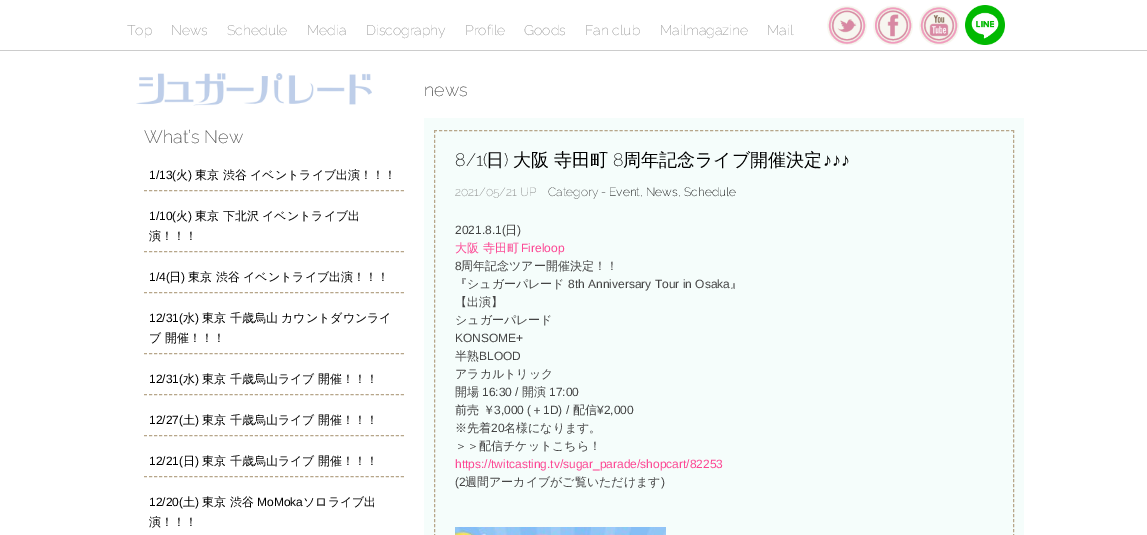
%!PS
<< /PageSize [1147 535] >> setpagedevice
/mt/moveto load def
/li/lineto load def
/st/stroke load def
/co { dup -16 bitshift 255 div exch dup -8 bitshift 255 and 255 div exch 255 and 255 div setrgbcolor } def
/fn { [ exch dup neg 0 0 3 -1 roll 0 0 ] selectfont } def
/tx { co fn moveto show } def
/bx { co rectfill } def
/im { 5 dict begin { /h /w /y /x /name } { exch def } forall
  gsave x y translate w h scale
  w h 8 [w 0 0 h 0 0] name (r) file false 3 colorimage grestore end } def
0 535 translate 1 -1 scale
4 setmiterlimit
0 0 1147 535 16#FFFFFF bx
0 50 1147 1 16#CCCCCC bx
(media/1.raw) 827 5 40 40 im
(media/2.raw) 873 5 40 40 im
(media/3.raw) 919 5 40 40 im
(media/4.raw) 965 5 40 40 im
(media/5.raw) 136 73 236 33 im
16#B7A68A co
[3 2.04] 0 setdash
144 190.5 mt 404 190.5 li st
144 251.5 mt 404 251.5 li st
144 292.5 mt 404 292.5 li st
144 353.5 mt 404 353.5 li st
144 394.5 mt 404 394.5 li st
144 435.5 mt 404 435.5 li st
144 476.5 mt 404 476.5 li st
424 118 600 417 16#F5FDFB bx
16#B7A68A co
[3 2.02] 0 setdash
434 130.5 mt 1014 130.5 li st
[3 1.99] 0 setdash
1013.5 130 mt 1013.5 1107 li st
434.5 130 mt 434.5 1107 li st
(media/6.raw) 455 527 211 8 im
(Top) 127 35 /Raleway-Thin 14 16#999999 tx
(News) 171 35 /Raleway-Thin 14 16#999999 tx
(Schedule) 227 35 /Raleway-Thin 14 16#999999 tx
(Media) 307 35 /Raleway-Thin 14 16#999999 tx
(Discography) 366 35 /Raleway-Thin 14 16#999999 tx
(Profile) 465 35 /Raleway-Thin 14 16#999999 tx
(Goods) 524 35 /Raleway-Thin 14 16#999999 tx
(Fan club) 585 35 /Raleway-Thin 14 16#999999 tx
(Mailmagazine) 660 35 /Raleway-Thin 14 16#999999 tx
(Mail) 767 35 /Raleway-Thin 14 16#999999 tx
(What’s New) 144 143 /Raleway-Thin 18 16#444444 tx
(1/13\() 149 179 /LiberationSans-Regular 12 16#000000 tx
(火) 176 179 /WenQuanYiZenHei-Medium 12 16#000000 tx
(\)) 188 179 /LiberationSans-Regular 12 16#000000 tx
(東京 渋谷 イベントライブ出演！！！) 195 179 /WenQuanYiZenHei-Medium 12 16#000000 tx
(1/10\() 149 220 /LiberationSans-Regular 12 16#000000 tx
(火) 176 220 /WenQuanYiZenHei-Medium 12 16#000000 tx
(\)) 188 220 /LiberationSans-Regular 12 16#000000 tx
(東京 下北沢 イベントライブ出) 195 220 /WenQuanYiZenHei-Medium 12 16#000000 tx
(演！！！) 149 240 /WenQuanYiZenHei-Medium 12 16#000000 tx
(1/4\() 149 281 /LiberationSans-Regular 12 16#000000 tx
(日) 169 281 /WenQuanYiZenHei-Medium 12 16#000000 tx
(\)) 181 281 /LiberationSans-Regular 12 16#000000 tx
(東京 渋谷 イベントライブ出演！！！) 188 281 /WenQuanYiZenHei-Medium 12 16#000000 tx
(12/31\() 149 322 /LiberationSans-Regular 12 16#000000 tx
(水) 183 322 /WenQuanYiZenHei-Medium 12 16#000000 tx
(\)) 195 322 /LiberationSans-Regular 12 16#000000 tx
(東京 千歳烏山 カウントダウンライ) 202 322 /WenQuanYiZenHei-Medium 12 16#000000 tx
(ブ 開催！！！) 149 342 /WenQuanYiZenHei-Medium 12 16#000000 tx
(12/31\() 149 383 /LiberationSans-Regular 12 16#000000 tx
(水) 183 383 /WenQuanYiZenHei-Medium 12 16#000000 tx
(\)) 195 383 /LiberationSans-Regular 12 16#000000 tx
(東京 千歳烏山ライブ 開催！！！) 202 383 /WenQuanYiZenHei-Medium 12 16#000000 tx
(12/27\() 149 424 /LiberationSans-Regular 12 16#000000 tx
(土) 183 424 /WenQuanYiZenHei-Medium 12 16#000000 tx
(\)) 195 424 /LiberationSans-Regular 12 16#000000 tx
(東京 千歳烏山ライブ 開催！！！) 202 424 /WenQuanYiZenHei-Medium 12 16#000000 tx
(12/21\() 149 465 /LiberationSans-Regular 12 16#000000 tx
(日) 183 465 /WenQuanYiZenHei-Medium 12 16#000000 tx
(\)) 195 465 /LiberationSans-Regular 12 16#000000 tx
(東京 千歳烏山ライブ 開催！！！) 202 465 /WenQuanYiZenHei-Medium 12 16#000000 tx
(12/20\() 149 506 /LiberationSans-Regular 12 16#000000 tx
(土) 183 506 /WenQuanYiZenHei-Medium 12 16#000000 tx
(\)) 195 506 /LiberationSans-Regular 12 16#000000 tx
(東京 渋谷) 202 506 /WenQuanYiZenHei-Medium 12 16#000000 tx
(MoMoka) 257 506 /LiberationSans-Regular 12 16#000000 tx
(ソロライブ出) 303 506 /WenQuanYiZenHei-Medium 12 16#000000 tx
(演！！！) 149 526 /WenQuanYiZenHei-Medium 12 16#000000 tx
(news) 424 96 /Raleway-Thin 18 16#444444 tx
(8/1\() 455 166 /Raleway-Thin 18 16#000000 tx
(日) 486 166 /WenQuanYiZenHei-Medium 18 16#000000 tx
(\)) 504 166 /Raleway-Thin 18 16#000000 tx
(大阪 寺田町) 513 166 /WenQuanYiZenHei-Medium 18 16#000000 tx
(8) 613 166 /Raleway-Thin 18 16#000000 tx
(周年記念ライブ開催決定) 623 166 /WenQuanYiZenHei-Medium 18 16#000000 tx
(♪♪♪) 823 166 /LiberationSans-Regular 18 16#000000 tx
(2021/05/21 UP) 455 196 /Raleway-Thin 12 16#888888 tx
(Category -) 548 196 /Raleway-Thin 12 16#444444 tx
(Event) 609 196 /Raleway-Thin 12 16#000000 tx
(,) 640 196 /Raleway-Thin 12 16#444444 tx
(News) 646 196 /Raleway-Thin 12 16#000000 tx
(,) 678 196 /Raleway-Thin 12 16#444444 tx
(Schedule) 684 196 /Raleway-Thin 12 16#000000 tx
(2021.8.1\() 455 234 /LiberationSans-Regular 12 16#444444 tx
(日) 505 234 /WenQuanYiZenHei-Medium 12 16#444444 tx
(\)) 517 234 /LiberationSans-Regular 12 16#444444 tx
(大阪 寺田町) 455 252 /WenQuanYiZenHei-Medium 12 16#FD4794 tx
(Fireloop) 521 252 /LiberationSans-Regular 12 16#FD4794 tx
(8) 455 270 /LiberationSans-Regular 12 16#444444 tx
(周年記念ツアー開催決定！！) 461 270 /WenQuanYiZenHei-Medium 12 16#444444 tx
(『シュガーパレード) 455 288 /WenQuanYiZenHei-Medium 12 16#444444 tx
(8th Anniversary Tour in Osaka) 568 288 /LiberationSans-Regular 12 16#444444 tx
(』) 730 288 /WenQuanYiZenHei-Medium 12 16#444444 tx
(【出演】) 455 306 /WenQuanYiZenHei-Medium 12 16#444444 tx
(シュガーパレード) 455 324 /WenQuanYiZenHei-Medium 12 16#444444 tx
(KONSOME+) 455 342 /LiberationSans-Regular 12 16#444444 tx
(半熟) 455 360 /WenQuanYiZenHei-Medium 12 16#444444 tx
(BLOOD) 479 360 /LiberationSans-Regular 12 16#444444 tx
(アラカルトリック) 455 378 /WenQuanYiZenHei-Medium 12 16#444444 tx
(開場) 455 396 /WenQuanYiZenHei-Medium 12 16#444444 tx
(16:30 /) 482 396 /LiberationSans-Regular 12 16#444444 tx
(開演) 522 396 /WenQuanYiZenHei-Medium 12 16#444444 tx
(17:00) 549 396 /LiberationSans-Regular 12 16#444444 tx
(前売 ￥) 455 414 /WenQuanYiZenHei-Medium 12 16#444444 tx
(3,000 \() 494 414 /LiberationSans-Regular 12 16#444444 tx
(＋) 531 414 /WenQuanYiZenHei-Medium 12 16#444444 tx
(1D\) /) 543 414 /LiberationSans-Regular 12 16#444444 tx
(配信) 573 414 /WenQuanYiZenHei-Medium 12 16#444444 tx
(¥2,000) 597 414 /LiberationSans-Regular 12 16#444444 tx
(※先着) 455 432 /WenQuanYiZenHei-Medium 12 16#444444 tx
(20) 491 432 /LiberationSans-Regular 12 16#444444 tx
(名様になります。) 504 432 /WenQuanYiZenHei-Medium 12 16#444444 tx
(＞＞配信チケットこちら！) 455 450 /WenQuanYiZenHei-Medium 12 16#444444 tx
(https://twitcasting.tv/sugar_parade/shopcart/82253) 455 468 /LiberationSans-Regular 12 16#FD4794 tx
(\(2) 455 486 /LiberationSans-Regular 12 16#444444 tx
(週間アーカイブがご覧いただけます) 465 486 /WenQuanYiZenHei-Medium 12 16#444444 tx
(\)) 661 486 /LiberationSans-Regular 12 16#444444 tx
showpage
